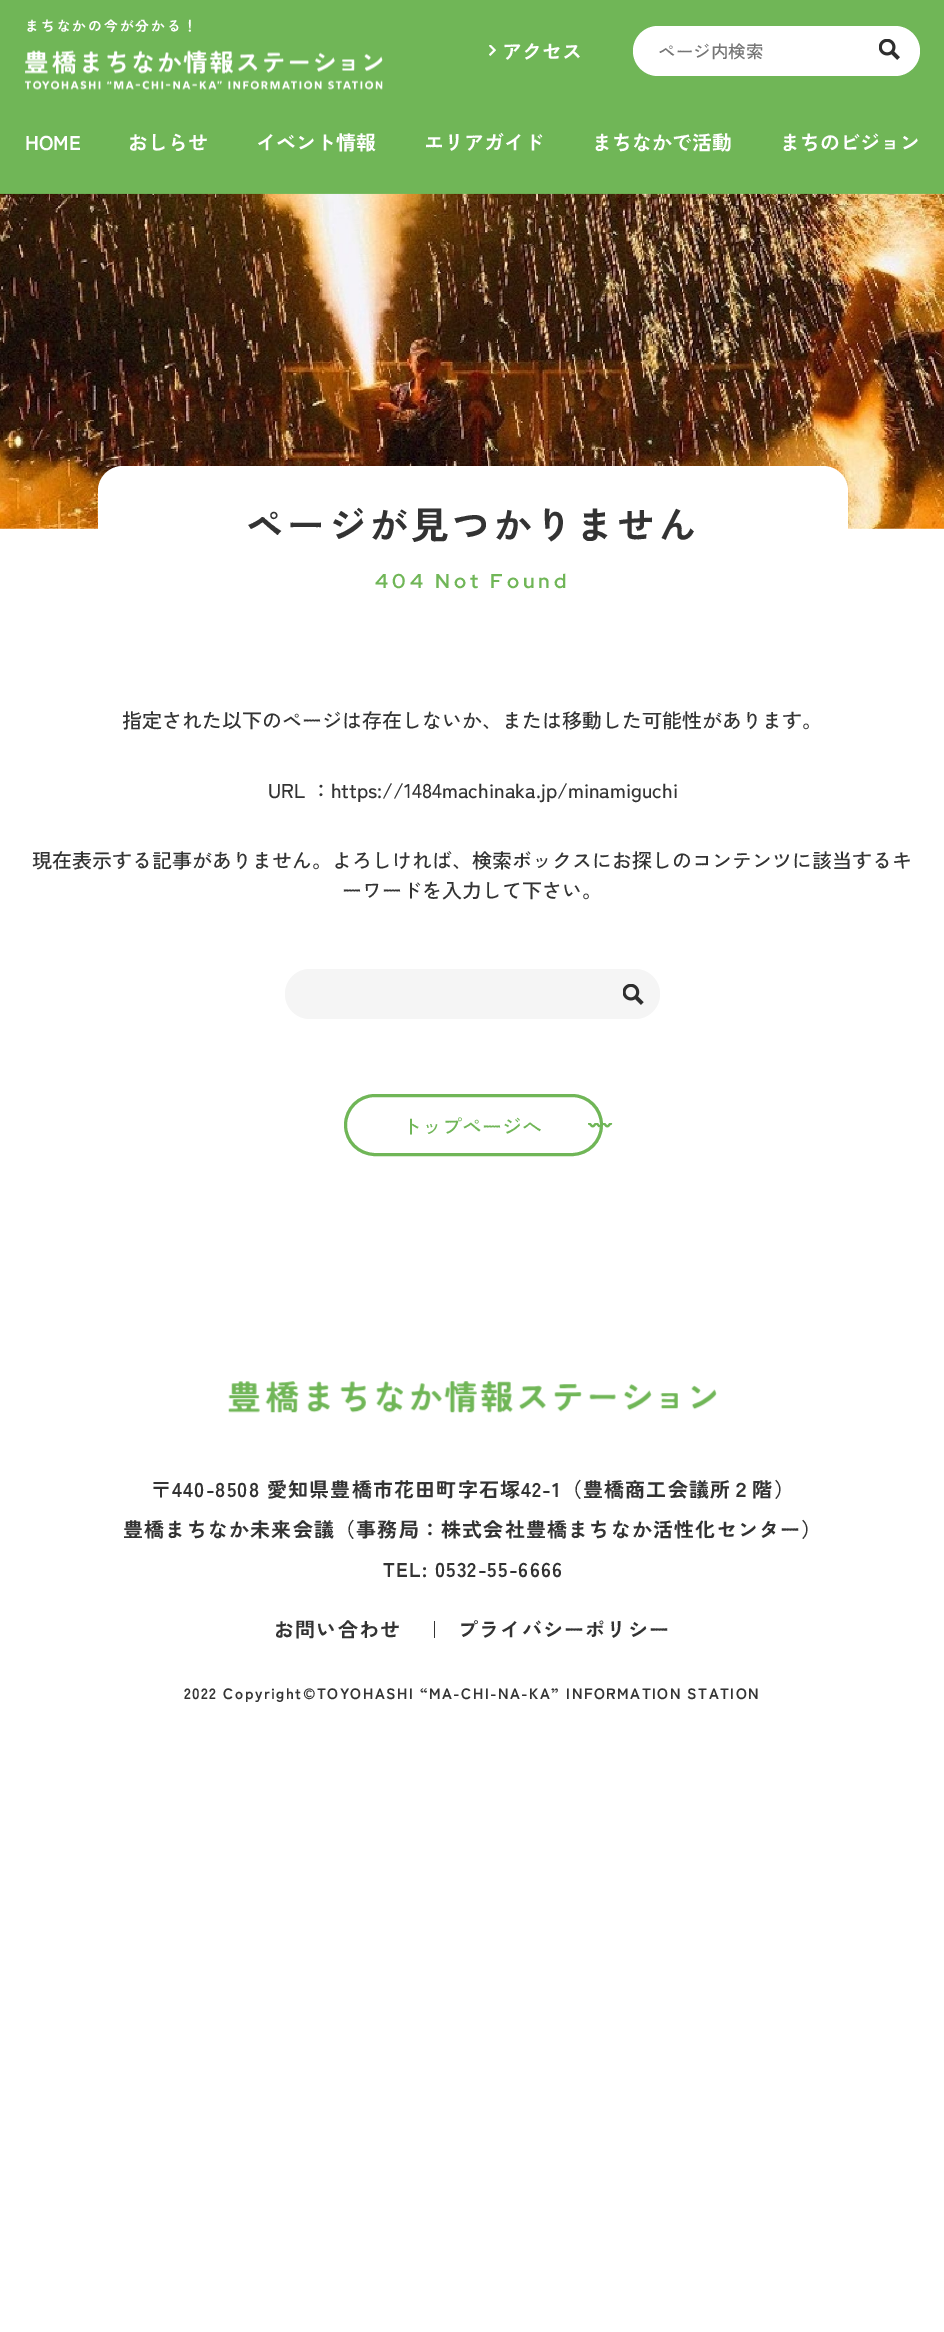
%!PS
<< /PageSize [944 2332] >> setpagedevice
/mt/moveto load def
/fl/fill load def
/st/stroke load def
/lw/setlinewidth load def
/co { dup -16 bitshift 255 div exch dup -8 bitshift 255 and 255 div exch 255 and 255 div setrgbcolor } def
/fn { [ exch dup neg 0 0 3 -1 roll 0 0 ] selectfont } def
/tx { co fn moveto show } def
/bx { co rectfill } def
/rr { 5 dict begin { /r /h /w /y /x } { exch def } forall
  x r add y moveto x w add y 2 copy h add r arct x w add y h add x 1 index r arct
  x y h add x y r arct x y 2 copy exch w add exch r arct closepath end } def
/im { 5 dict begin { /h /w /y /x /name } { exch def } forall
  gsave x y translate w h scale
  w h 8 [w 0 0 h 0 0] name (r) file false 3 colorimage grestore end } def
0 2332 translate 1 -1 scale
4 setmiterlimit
0 0 944 2332 16#FFFFFF bx
0 0 944 194 16#70B657 bx
(media/1.raw) 25 50 358 40 im
(media/2.raw) 489 45 7 11 im
16#FFFFFF co
633 26 287 50 25 rr fl
(media/3.raw) 879 39 21 21 im
(media/4.raw) 0 193 944 336 im
98 466 750 125 25 rr fl
16#F5F5F5 co
285 969 375 50 25 rr fl
(media/5.raw) 623 984 21 21 im
16#70B657 co
3 lw
345.5 1095.5 256 59 29.5 rr st
(media/6.raw) 588 1123 25 5 im
(media/7.raw) 228 1381 489 32 im
434 1621 1 17 16#333333 bx
/ZenKakuGothicNew-Bold 13.75 fn
16#FFFFFF co
25 31 mt 2 0 (まちなかの今が分かる！) ashow
(アクセス) 502 59 /ZenKakuGothicNew-Bold 20 16#FFFFFF tx
(ページ内検索) 658 58 /ZenKakuGothicNew-Medium 17.5 16#757575 tx
(HOME) 25 150 /ZenKakuGothicNew-Bold 20 16#FFFFFF tx
(おしらせ) 128 150 /ZenKakuGothicNew-Bold 20 16#FFFFFF tx
(イベント情報) 256 150 /ZenKakuGothicNew-Bold 20 16#FFFFFF tx
(エリアガイド) 424 150 /ZenKakuGothicNew-Bold 20 16#FFFFFF tx
(まちなかで活動) 592 150 /ZenKakuGothicNew-Bold 20 16#FFFFFF tx
(まちのビジョン) 780 150 /ZenKakuGothicNew-Bold 20 16#FFFFFF tx
/ZenKakuGothicNew-Bold 37.5 fn
16#333333 co
246 539 mt 3.75 0 (ページが見つかりません) ashow
/RedHatDisplay-Bold 20 fn
16#70B657 co
375 588 mt 4 0 (404 Not Found) ashow
(指定された以下のページは存在しないか、または移動した可能性があります。) 122 728 /ZenKakuGothicNew-Medium 20 16#333333 tx
(URL ：https://1484machinaka.jp/minamiguchi) 268 798 /ZenKakuGothicNew-Medium 20 16#333333 tx
(現在表示する記事がありません。よろしければ、検索ボックスにお探しのコンテンツに該当するキ) 32 868 /ZenKakuGothicNew-Medium 20 16#333333 tx
(ーワードを入力して下さい。) 342 898 /ZenKakuGothicNew-Medium 20 16#333333 tx
(トップページへ) 402 1134 /ZenKakuGothicNew-Medium 20 16#70B657 tx
/ZenKakuGothicNew-Bold 20 fn
16#333333 co
151 1497 mt 1.2 0 (〒440-8508 愛知県豊橋市花田町字石塚42-1（豊橋商工会議所２階）) ashow
123 1537 mt 1.2 0 (豊橋まちなか未来会議（事務局：株式会社豊橋まちなか活性化センター）) ashow
383 1577 mt 1.2 0 (TEL: 0532-55-6666) ashow
274 1637 mt 1.2 0 (お問い合わせ) ashow
458 1637 mt 1.2 0 (プライバシーポリシー) ashow
/ZenKakuGothicNew-Bold 15 fn
184 1699 mt 1.5 0 (2022 Copyright©TOYOHASHI “MA-CHI-NA-KA” INFORMATION STATION) ashow
showpage
